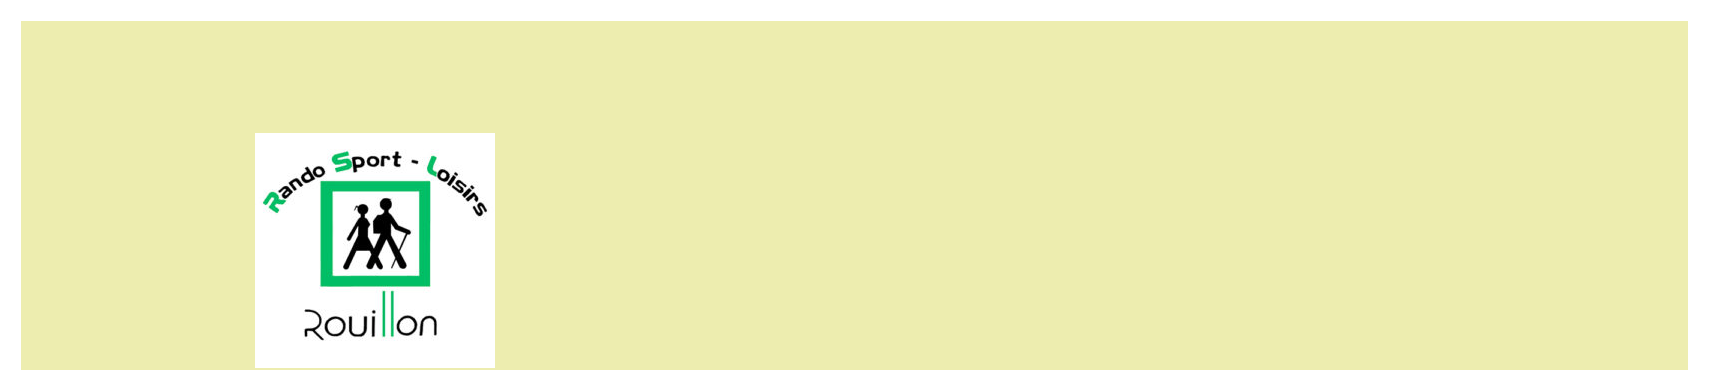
%!PS
<< /PageSize [1709 370] >> setpagedevice
/co { dup -16 bitshift 255 div exch dup -8 bitshift 255 and 255 div exch 255 and 255 div setrgbcolor } def
/bx { co rectfill } def
/im { 5 dict begin { /h /w /y /x /name } { exch def } forall
  gsave x y translate w h scale
  w h 8 [w 0 0 h 0 0] name (r) file false 3 colorimage grestore end } def
0 370 translate 1 -1 scale
4 setmiterlimit
0 0 1709 370 16#FFFFFF bx
21 21 1667 349 16#EDEDAF bx
(media/1.raw) 255 133 240 235 im
showpage
